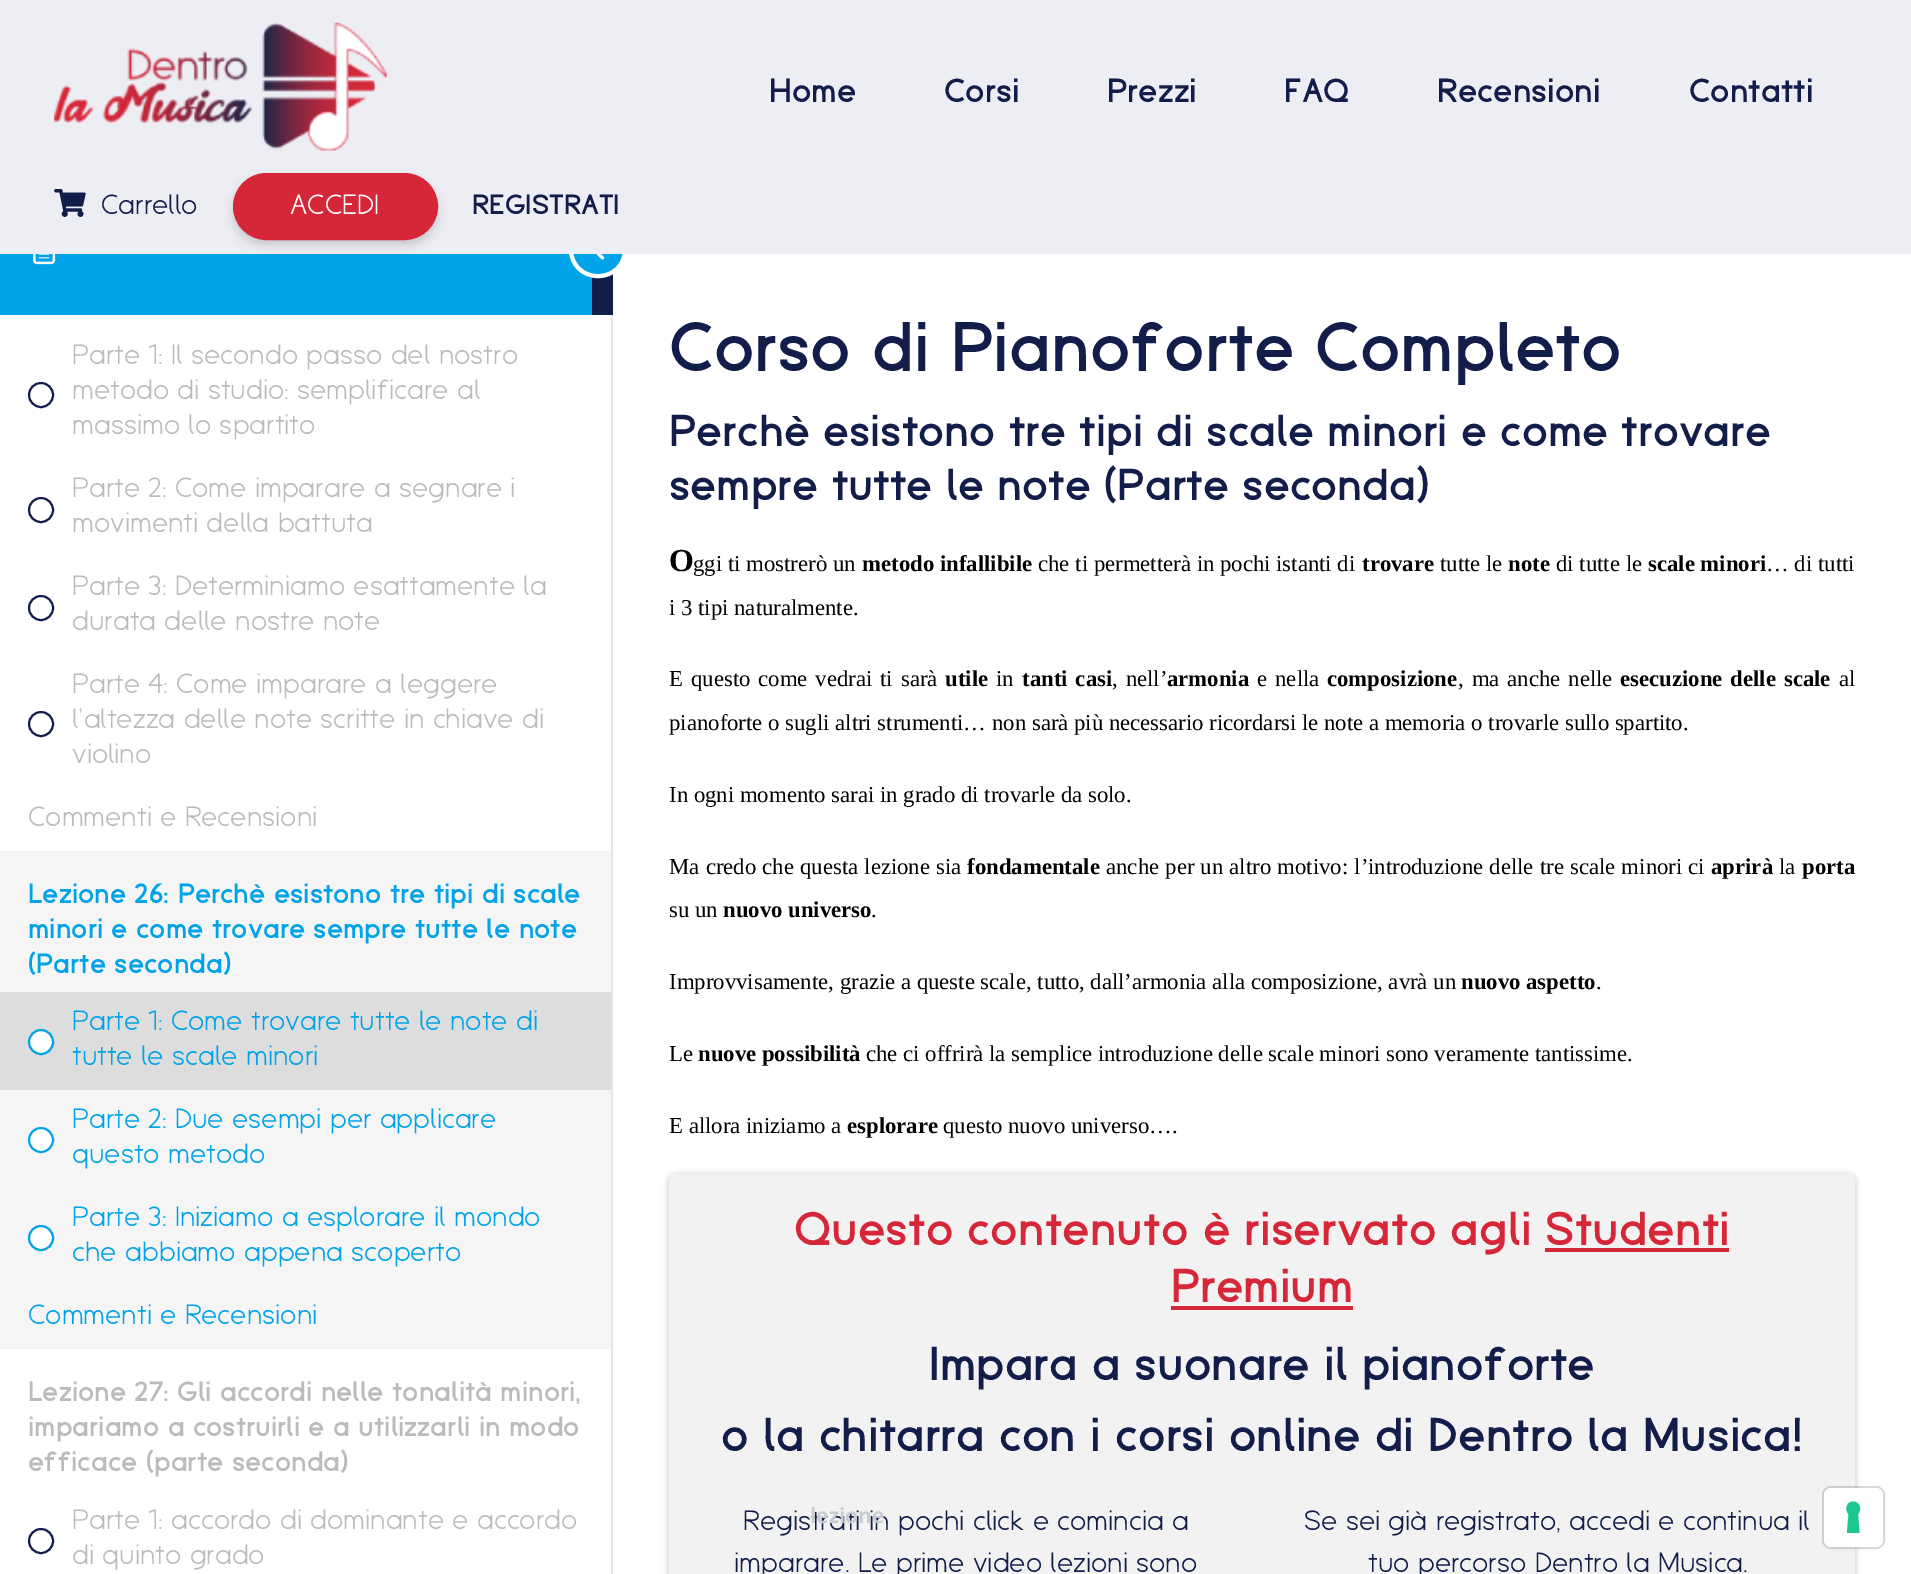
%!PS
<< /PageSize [1911 1574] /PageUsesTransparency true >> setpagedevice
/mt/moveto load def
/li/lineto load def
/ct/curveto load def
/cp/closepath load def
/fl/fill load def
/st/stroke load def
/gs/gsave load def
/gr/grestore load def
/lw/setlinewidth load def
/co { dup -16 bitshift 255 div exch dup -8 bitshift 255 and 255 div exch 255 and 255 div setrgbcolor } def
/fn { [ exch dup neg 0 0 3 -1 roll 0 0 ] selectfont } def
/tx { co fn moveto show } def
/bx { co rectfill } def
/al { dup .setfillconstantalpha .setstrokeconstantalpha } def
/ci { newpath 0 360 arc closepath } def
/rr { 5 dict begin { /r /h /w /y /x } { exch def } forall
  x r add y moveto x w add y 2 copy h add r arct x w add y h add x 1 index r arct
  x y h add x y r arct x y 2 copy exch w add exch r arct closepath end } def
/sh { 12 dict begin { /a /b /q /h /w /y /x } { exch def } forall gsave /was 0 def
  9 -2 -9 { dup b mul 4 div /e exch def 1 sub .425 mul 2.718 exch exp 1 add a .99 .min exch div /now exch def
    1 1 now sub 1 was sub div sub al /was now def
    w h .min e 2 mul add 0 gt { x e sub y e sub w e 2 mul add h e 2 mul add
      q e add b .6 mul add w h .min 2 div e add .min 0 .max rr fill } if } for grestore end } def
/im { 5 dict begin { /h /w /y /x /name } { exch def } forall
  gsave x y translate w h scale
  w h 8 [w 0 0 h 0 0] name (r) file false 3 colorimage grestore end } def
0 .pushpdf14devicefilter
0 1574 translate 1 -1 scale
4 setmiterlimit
0 0 1911 1574 16#FFFFFF bx
0 254 592 61 16#00A2E8 bx
592 274 21 41 16#121D4A bx
16#00A2E8 co
571 224 54 52 26 rr gs fl gr
16#FFFFFF co
4 lw
st
0 0 1911 254 16#EDEDF4 bx
(media/1.raw) 54 22 333 129 im
(media/2.raw) 54 189 32 28 im
16#000000 co
233 179 205 66 33 5 .16 sh
16#D62739 co
234 174 203 65 32.5 rr gs fl gr
2 lw
st
611 315 2 1259 16#E2E7ED bx
(media/3.raw) 33 254 23 11 im
(media/4.raw) 596 254 9 6 im
16#121D4A co
41 395 12 ci st
41 510 12 ci st
41 608 12 ci st
41 724 12 ci st
0 851 611 498 16#F5F5F5 bx
0 992 611 98 16#DDDDDD bx
16#FFFFFF co
41 1042 12 ci gs fl gr
16#00A2E8 co
st
16#FFFFFF co
41 1140 12 ci gs fl gr
16#00A2E8 co
st
16#FFFFFF co
41 1238 12 ci gs fl gr
16#00A2E8 co
st
16#121D4A co
41 1541 12 ci st
16#DDDDDD co
667 1173 1190 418 9 2.5 1 sh
16#F2F2F2 co
669 1174 1186 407 7 rr fl
1545 1248 184 4 16#D62739 bx
1171 1306 182 4 16#D62739 bx
0.15 al
16#000000 co
1823 1487 61 61 8 rr st
1 al
16#FFFFFF co
1824 1488 59 59 7 rr fl
16#1CC691 co
1853 1501.5 mt 1859.5 1501.5 1862.5 1509.5 1858 1514 ct 1859.5 1533 li 1847 1533 li 1848.5 1514 li 1844 1509.5 1847 1501.5 1853 1501.5 ct cp eofill
(Home) 769 102 /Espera-Bold 33.5 16#121D4A tx
(Corsi) 944 102 /Espera-Bold 33.5 16#121D4A tx
(Prezzi) 1107 102 /Espera-Bold 33.5 16#121D4A tx
(FAQ) 1284 102 /Espera-Bold 33.5 16#121D4A tx
(Recensioni) 1437 102 /Espera-Bold 33.5 16#121D4A tx
(Contatti) 1689 102 /Espera-Bold 33.5 16#121D4A tx
(Carrello) 101 214 /Espera-Regular 28 16#121D4A tx
(ACCEDI) 290 214 /Espera-Regular 28 16#FFFFFF tx
(REGISTRATI) 472 214 /Espera-Bold 28 16#121D4A tx
(Parte 1: Il secondo passo del nostro) 72 364 /Espera-Regular 28 16#BBBBBB tx
(metodo di studio: semplificare al) 72 399 /Espera-Regular 28 16#BBBBBB tx
(massimo lo spartito) 72 434 /Espera-Regular 28 16#BBBBBB tx
(Parte 2: Come imparare a segnare i) 72 497 /Espera-Regular 28 16#BBBBBB tx
(movimenti della battuta) 72 532 /Espera-Regular 28 16#BBBBBB tx
(Parte 3: Determiniamo esattamente la) 72 595 /Espera-Regular 28 16#BBBBBB tx
(durata delle nostre note) 72 630 /Espera-Regular 28 16#BBBBBB tx
(Parte 4: Come imparare a leggere) 72 693 /Espera-Regular 28 16#BBBBBB tx
(l’altezza delle note scritte in chiave di) 72 728 /Espera-Regular 28 16#BBBBBB tx
(violino) 72 763 /Espera-Regular 28 16#BBBBBB tx
(Commenti e Recensioni) 28 826 /Espera-Regular 28 16#BBBBBB tx
(Lezione 26: Perchè esistono tre tipi di scale) 28 903 /Espera-Bold 28 16#00A2E8 tx
(minori e come trovare sempre tutte le note) 28 938 /Espera-Bold 28 16#00A2E8 tx
(\(Parte seconda\)) 28 973 /Espera-Bold 28 16#00A2E8 tx
(Parte 1: Come trovare tutte le note di) 72 1030 /Espera-Regular 28 16#00A2E8 tx
(tutte le scale minori) 72 1065 /Espera-Regular 28 16#00A2E8 tx
(Parte 2: Due esempi per applicare) 72 1128 /Espera-Regular 28 16#00A2E8 tx
(questo metodo) 72 1163 /Espera-Regular 28 16#00A2E8 tx
(Parte 3: Iniziamo a esplorare il mondo) 72 1226 /Espera-Regular 28 16#00A2E8 tx
(che abbiamo appena scoperto) 72 1261 /Espera-Regular 28 16#00A2E8 tx
(Commenti e Recensioni) 28 1324 /Espera-Regular 28 16#00A2E8 tx
(Lezione 27: Gli accordi nelle tonalità minori,) 28 1401 /Espera-Bold 28 16#BBBBBB tx
(impariamo a costruirli e a utilizzarli in modo) 28 1436 /Espera-Bold 28 16#BBBBBB tx
(efficace \(parte seconda\)) 28 1471 /Espera-Bold 28 16#BBBBBB tx
(Parte 1: accordo di dominante e accordo) 72 1529 /Espera-Regular 28 16#BBBBBB tx
(di quinto grado) 72 1564 /Espera-Regular 28 16#BBBBBB tx
(Corso di Pianoforte Completo) 669 371 /Espera-Bold 70 16#121D4A tx
(Perchè esistono tre tipi di scale minori e come trovare) 669 446 /Espera-Bold 44.8 16#121D4A tx
(sempre tutte le note \(Parte seconda\)) 669 500 /Espera-Bold 44.8 16#121D4A tx
(O) 669 571 /LiberationSerif-Bold 32 16#000000 tx
(ggi ti mostrerò un) 693 571 /LiberationSerif-Regular 22.75 16#000000 tx
(metodo infallibile) 862 571 /LiberationSerif-Bold 22.75 16#000000 tx
(che ti permetterà in pochi istanti di) 1038 571 /LiberationSerif-Regular 22.75 16#000000 tx
(trovare) 1362 571 /LiberationSerif-Bold 22.75 16#000000 tx
(tutte le) 1440 571 /LiberationSerif-Regular 22.75 16#000000 tx
(note) 1508 571 /LiberationSerif-Bold 22.75 16#000000 tx
(di tutte le) 1556 571 /LiberationSerif-Regular 22.75 16#000000 tx
(scale minori) 1648 571 /LiberationSerif-Bold 22.75 16#000000 tx
(… di tutti) 1766 571 /LiberationSerif-Regular 22.75 16#000000 tx
(i 3 tipi naturalmente.) 669 615 /LiberationSerif-Regular 22.75 16#000000 tx
669 686 mt 2.25 0 32 (E questo come vedrai ti sarà) widthshow
(utile) 945 686 /LiberationSerif-Bold 22.75 16#000000 tx
(in) 996 686 /LiberationSerif-Regular 22.75 16#000000 tx
/LiberationSerif-Bold 22.75 fn
1022 686 mt 2.25 0 32 (tanti casi) widthshow
/LiberationSerif-Regular 22.75 fn
1112 686 mt 2.25 0 32 (, nell’) widthshow
(armonia) 1167 686 /LiberationSerif-Bold 22.75 16#000000 tx
/LiberationSerif-Regular 22.75 fn
1257 686 mt 2.25 0 32 (e nella) widthshow
(composizione) 1327 686 /LiberationSerif-Bold 22.75 16#000000 tx
/LiberationSerif-Regular 22.75 fn
1458 686 mt 2.25 0 32 (, ma anche nelle) widthshow
/LiberationSerif-Bold 22.75 fn
1620 686 mt 2.25 0 32 (esecuzione delle scale) widthshow
(al) 1839 686 /LiberationSerif-Regular 22.75 16#000000 tx
(pianoforte o sugli altri strumenti… non sarà più necessario ricordarsi le note a memoria o trovarle sullo spartito.) 669 730 /LiberationSerif-Regular 22.75 16#000000 tx
(In ogni momento sarai in grado di trovarle da solo.) 669 802 /LiberationSerif-Regular 22.75 16#000000 tx
669 874 mt .5 0 32 (Ma credo che questa lezione sia) widthshow
(fondamentale) 967 874 /LiberationSerif-Bold 22.75 16#000000 tx
/LiberationSerif-Regular 22.75 fn
1106 874 mt .5 0 32 (anche per un altro motivo: l’introduzione delle tre scale minori ci) widthshow
(aprirà) 1711 874 /LiberationSerif-Bold 22.75 16#000000 tx
(la) 1779 874 /LiberationSerif-Regular 22.75 16#000000 tx
(porta) 1802 874 /LiberationSerif-Bold 22.75 16#000000 tx
(su un) 669 917 /LiberationSerif-Regular 22.75 16#000000 tx
(nuovo universo) 723 917 /LiberationSerif-Bold 22.75 16#000000 tx
(.) 871 917 /LiberationSerif-Regular 22.75 16#000000 tx
(Improvvisamente, grazie a queste scale, tutto, dall’armonia alla composizione, avrà un) 669 989 /LiberationSerif-Regular 22.75 16#000000 tx
(nuovo aspetto) 1461 989 /LiberationSerif-Bold 22.75 16#000000 tx
(.) 1596 989 /LiberationSerif-Regular 22.75 16#000000 tx
(Le) 669 1061 /LiberationSerif-Regular 22.75 16#000000 tx
(nuove possibilità) 698 1061 /LiberationSerif-Bold 22.75 16#000000 tx
(che ci offrirà la semplice introduzione delle scale minori sono veramente tantissime.) 866 1061 /LiberationSerif-Regular 22.75 16#000000 tx
(E allora iniziamo a) 669 1133 /LiberationSerif-Regular 22.75 16#000000 tx
(esplorare) 847 1133 /LiberationSerif-Bold 22.75 16#000000 tx
(questo nuovo universo….) 943 1133 /LiberationSerif-Regular 22.75 16#000000 tx
(Questo contenuto è riservato agli) 794 1245 /Espera-Bold 47.6 16#D62739 tx
(Studenti) 1545 1245 /Espera-Bold 47.6 16#D62739 tx
(Premium) 1171 1302 /Espera-Bold 47.6 16#D62739 tx
(Impara a suonare il pianoforte) 929 1380 /Espera-Bold 47.6 16#121D4A tx
(o la chitarra con i corsi online di Dentro la Musica!) 721 1451 /Espera-Bold 47.6 16#121D4A tx
(Registrati in pochi click e comincia a) 743 1530 /Espera-Regular 28 16#121D4A tx
(imparare. Le prime video lezioni sono) 734 1572 /Espera-Regular 28 16#121D4A tx
(Se sei già registrato, accedi e continua il) 1304 1530 /Espera-Regular 28 16#121D4A tx
(tuo percorso Dentro la Musica.) 1368 1572 /Espera-Regular 28 16#121D4A tx
(lezione) 810 1523 /OpenSans-Bold 21 16#CACCD4 tx
.poppdf14devicefilter showpage
